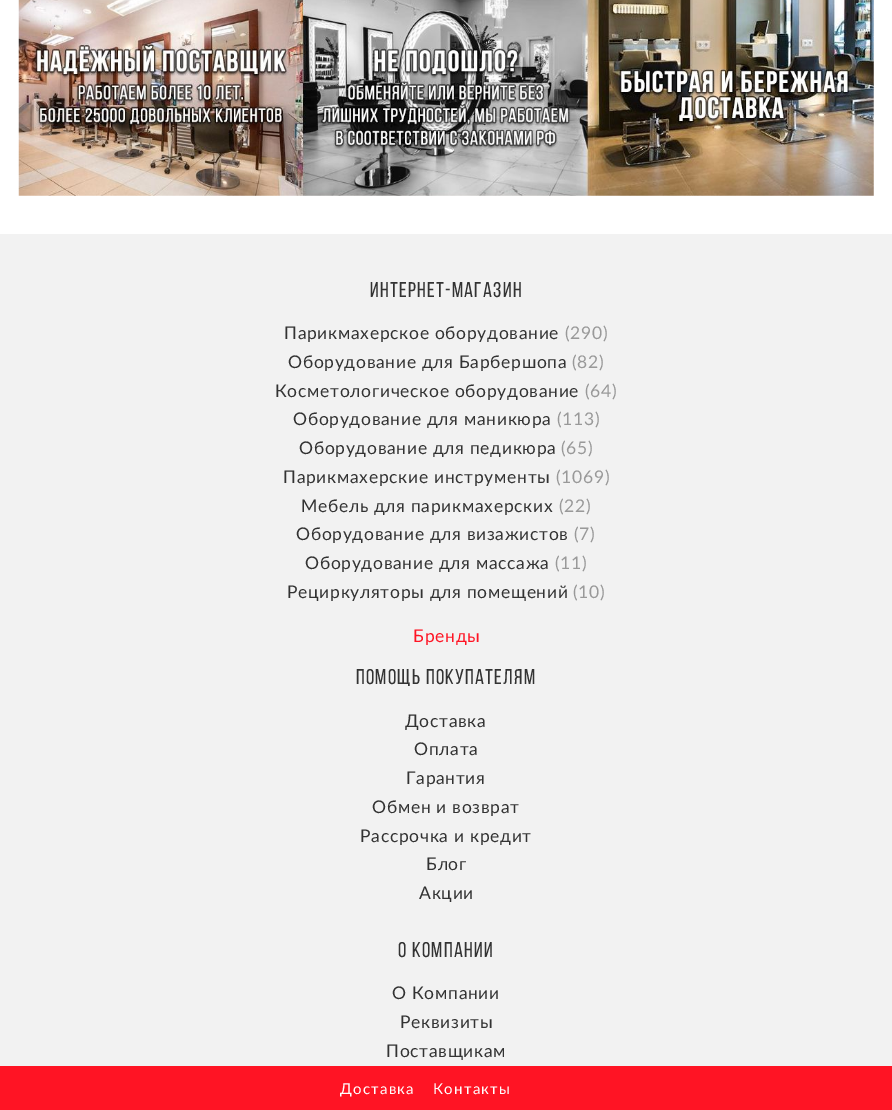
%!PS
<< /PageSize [892 1110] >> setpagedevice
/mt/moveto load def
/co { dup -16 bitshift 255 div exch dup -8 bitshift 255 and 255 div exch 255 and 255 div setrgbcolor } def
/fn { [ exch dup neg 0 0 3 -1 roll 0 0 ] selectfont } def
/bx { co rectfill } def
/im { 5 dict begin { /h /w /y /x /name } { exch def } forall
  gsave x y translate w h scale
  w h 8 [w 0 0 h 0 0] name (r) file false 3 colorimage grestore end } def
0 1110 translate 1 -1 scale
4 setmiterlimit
0 0 892 1110 16#FFFFFF bx
(media/1.raw) 18 0 856 196 im
0 234 892 832 16#F2F2F2 bx
0 1066 892 44 16#FF1424 bx
/BebasNeue-Regular 21.25 fn
16#333333 co
370 297 mt 1.25 0 (интернет-магазин) ashow
/Lato-Regular 17.5 fn
284 339 mt .7 0 (Парикмахерское оборудование) ashow
16#999999 co
565 339 mt .7 0 (\(290\)) ashow
16#333333 co
288 368 mt .7 0 (Оборудование для Барбершопа) ashow
16#999999 co
572 368 mt .7 0 (\(82\)) ashow
16#333333 co
275 397 mt .7 0 (Косметологическое оборудование) ashow
16#999999 co
585 397 mt .7 0 (\(64\)) ashow
16#333333 co
293 425 mt .7 0 (Оборудование для маникюра) ashow
16#999999 co
557 425 mt .7 0 (\(113\)) ashow
16#333333 co
299 454 mt .7 0 (Оборудование для педикюра) ashow
16#999999 co
561 454 mt .7 0 (\(65\)) ashow
16#333333 co
283 483 mt .7 0 (Парикмахерские инструменты) ashow
16#999999 co
556 483 mt .7 0 (\(1069\)) ashow
16#333333 co
301 512 mt .7 0 (Мебель для парикмахерских) ashow
16#999999 co
559 512 mt .7 0 (\(22\)) ashow
16#333333 co
296 540 mt .7 0 (Оборудование для визажистов) ashow
16#999999 co
574 540 mt .7 0 (\(7\)) ashow
16#333333 co
305 569 mt .7 0 (Оборудование для массажа) ashow
16#999999 co
555 569 mt .7 0 (\(11\)) ashow
16#333333 co
287 598 mt .7 0 (Рециркуляторы для помещений) ashow
16#999999 co
573 598 mt .7 0 (\(10\)) ashow
16#FF1424 co
413 642 mt .7 0 (Бренды) ashow
/BebasNeue-Regular 21.25 fn
16#333333 co
356 684 mt 1.25 0 (помощь покупателям) ashow
/Lato-Regular 17.5 fn
405 727 mt .7 0 (Доставка) ashow
414 755 mt .7 0 (Оплата) ashow
406 784 mt .7 0 (Гарантия) ashow
372 813 mt .7 0 (Обмен и возврат) ashow
360 842 mt .7 0 (Рассрочка и кредит) ashow
426 870 mt .7 0 (Блог) ashow
419 899 mt .7 0 (Акции) ashow
/BebasNeue-Regular 21.25 fn
398 957 mt 1.25 0 (о компании) ashow
/Lato-Regular 17.5 fn
392 999 mt .7 0 (О Компании) ashow
400 1028 mt .7 0 (Реквизиты) ashow
386 1057 mt .7 0 (Поставщикам) ashow
/Lato-Regular 15 fn
16#FFFFFF co
340 1094 mt 1.25 0 (Доставка) ashow
433 1094 mt 1.25 0 (Контакты) ashow
showpage
